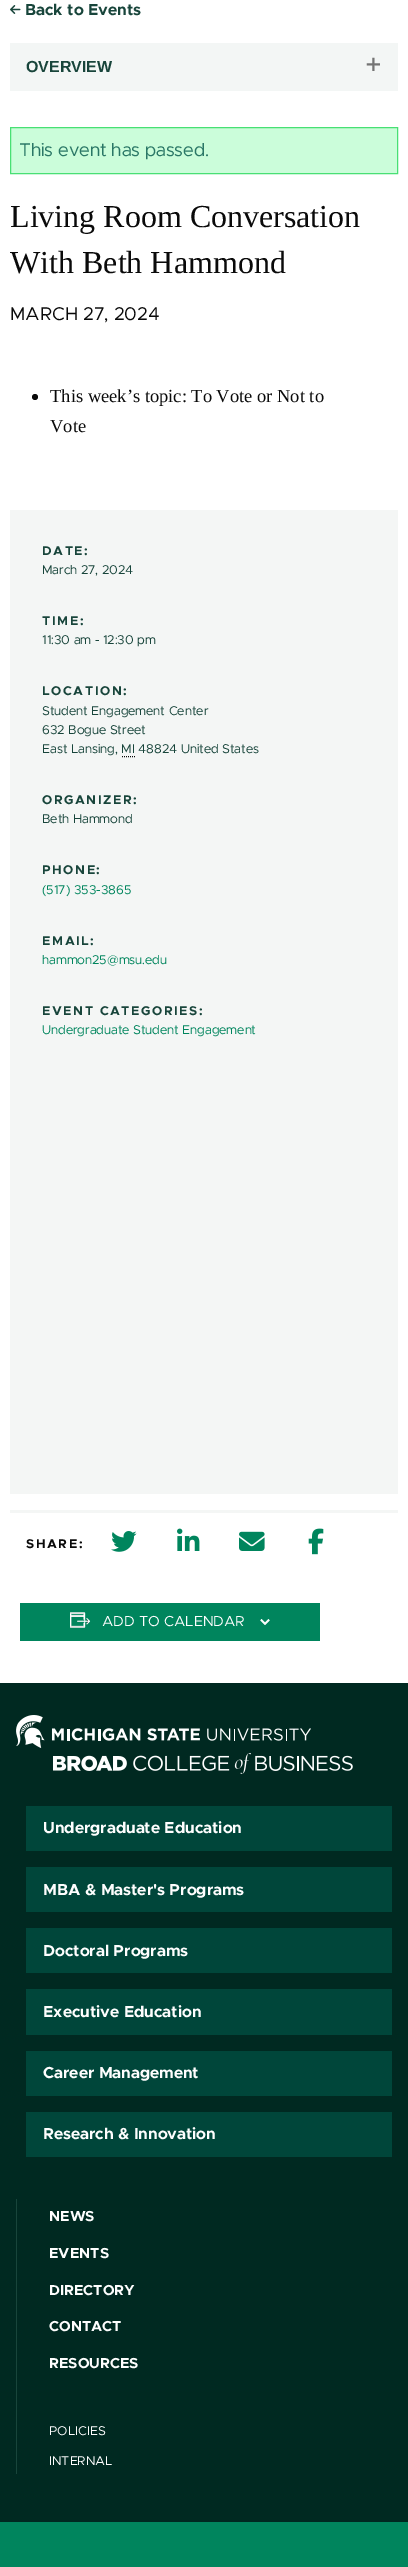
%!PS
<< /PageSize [408 2567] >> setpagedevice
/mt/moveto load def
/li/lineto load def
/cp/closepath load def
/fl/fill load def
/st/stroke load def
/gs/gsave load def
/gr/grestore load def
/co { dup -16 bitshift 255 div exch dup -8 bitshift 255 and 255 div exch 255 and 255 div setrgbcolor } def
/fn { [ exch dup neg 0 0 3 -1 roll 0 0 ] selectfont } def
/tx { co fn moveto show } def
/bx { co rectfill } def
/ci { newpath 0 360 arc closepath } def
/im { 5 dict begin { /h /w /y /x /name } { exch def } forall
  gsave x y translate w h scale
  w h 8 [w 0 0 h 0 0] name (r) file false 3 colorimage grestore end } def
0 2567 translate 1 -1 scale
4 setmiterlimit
0 0 408 2567 16#FFFFFF bx
(media/1.raw) 10 5 11 9 im
10 43 388 48 16#F3F6F5 bx
16#CBFDDA co
10.5 127.5 mt 397.5 127.5 li 397.5 173.5 li 10.5 173.5 li cp gs fl gr
16#48E074 co
st
16#0A0A0A co
35 397 3 ci fl
10 510 388 984 16#F4F6F5 bx
16#0A0A0A co
[1 1] 0 setdash
122 756.5 mt 135 756.5 li st
10 1510 388 3 16#F4F6F5 bx
(media/2.raw) 111 1531 26 21 im
(media/3.raw) 177 1528 23 23 im
(media/4.raw) 239 1531 26 20 im
(media/5.raw) 308 1528 16 27 im
20 1603 300 38 16#00855D bx
(media/6.raw) 70 1612 21 16 im
(media/7.raw) 260 1619 10 6 im
0 1683 408 839 16#002921 bx
(media/8.raw) 16 1715 295 33 im
(media/9.raw) 53 1753 300 21 im
26 1806 366 45 16#00463A bx
26 1867 366 45 16#00463A bx
26 1928 366 45 16#00463A bx
26 1989 366 46 16#00463A bx
26 2051 366 45 16#00463A bx
26 2112 366 45 16#00463A bx
16 2199 1 275 16#18453B bx
0 2522 408 45 16#00855D bx
(Back to Events) 25 15 /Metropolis-Bold 16 16#18453B tx
(OVERVIEW) 26 72 /LiberationSans-Bold 16 16#18453B tx
(+) 365 74 /Metropolis-Regular 29 16#747474 tx
(This event has passed.) 19 156 /Metropolis-Regular 18.5 16#2A7766 tx
(Living Room Conversation) 10 227 /LiberationSerif-Regular 32 16#0A0A0A tx
(With Beth Hammond) 10 273 /LiberationSerif-Regular 32 16#0A0A0A tx
(MARCH 27, 2024) 10 320 /Metropolis-Regular 18.5 16#0A0A0A tx
(This week’s topic: To Vote or Not to) 50 402 /LiberationSerif-Regular 18.5 16#0A0A0A tx
(Vote) 50 432 /LiberationSerif-Regular 18.5 16#0A0A0A tx
/Metropolis-Bold 12.75 fn
16#18453B co
42 555 mt 1.6 0 (DATE:) ashow
(March 27, 2024) 42 574 /Metropolis-Regular 12.75 16#18453B tx
/Metropolis-Bold 12.75 fn
42 625 mt 1.6 0 (TIME:) ashow
(11:30 am - 12:30 pm) 42 644 /Metropolis-Regular 12.75 16#18453B tx
/Metropolis-Bold 12.75 fn
42 695 mt 1.6 0 (LOCATION:) ashow
(Student Engagement Center) 42 715 /Metropolis-Regular 12.75 16#18453B tx
(632 Bogue Street) 42 734 /Metropolis-Regular 12.75 16#18453B tx
(East Lansing, MI 48824 United States) 42 753 /Metropolis-Regular 12.75 16#18453B tx
/Metropolis-Bold 12.75 fn
42 804 mt 1.6 0 (ORGANIZER:) ashow
(Beth Hammond) 42 823 /Metropolis-Regular 12.75 16#18453B tx
/Metropolis-Bold 12.75 fn
42 874 mt 1.6 0 (PHONE:) ashow
(\(517\) 353-3865) 42 894 /Metropolis-Regular 12.75 16#00855D tx
/Metropolis-Bold 12.75 fn
16#18453B co
42 945 mt 1.6 0 (EMAIL:) ashow
(hammon25@msu.edu) 42 964 /Metropolis-Regular 12.75 16#00855D tx
/Metropolis-Bold 12.75 fn
16#18453B co
42 1015 mt 1.6 0 (EVENT CATEGORIES:) ashow
(Undergraduate Student Engagement) 42 1034 /Metropolis-Regular 12.75 16#00855D tx
/Metropolis-Bold 12.75 fn
16#0A0A0A co
26 1548 mt 1.6 0 (SHARE:) ashow
(ADD TO CALENDAR) 102 1626 /Metropolis-Regular 14.5 16#FEFEFE tx
(Undergraduate Education) 43 1833 /Metropolis-Bold 16 16#FEFEFE tx
(MBA & Master's Programs) 43 1895 /Metropolis-Bold 16 16#FEFEFE tx
(Doctoral Programs) 43 1956 /Metropolis-Bold 16 16#FEFEFE tx
(Executive Education) 43 2017 /Metropolis-Bold 16 16#FEFEFE tx
(Career Management) 43 2078 /Metropolis-Bold 16 16#FEFEFE tx
(Research & Innovation) 43 2139 /Metropolis-Bold 16 16#FEFEFE tx
(NEWS) 49 2221 /Metropolis-Bold 14.5 16#FEFEFE tx
(EVENTS) 49 2258 /Metropolis-Bold 14.5 16#FEFEFE tx
(DIRECTORY) 49 2295 /Metropolis-Bold 14.5 16#FEFEFE tx
(CONTACT) 49 2331 /Metropolis-Bold 14.5 16#FEFEFE tx
(RESOURCES) 49 2368 /Metropolis-Bold 14.5 16#FEFEFE tx
(POLICIES) 49 2435 /Metropolis-Regular 12.75 16#FEFEFE tx
(INTERNAL) 49 2465 /Metropolis-Regular 12.75 16#FEFEFE tx
showpage
